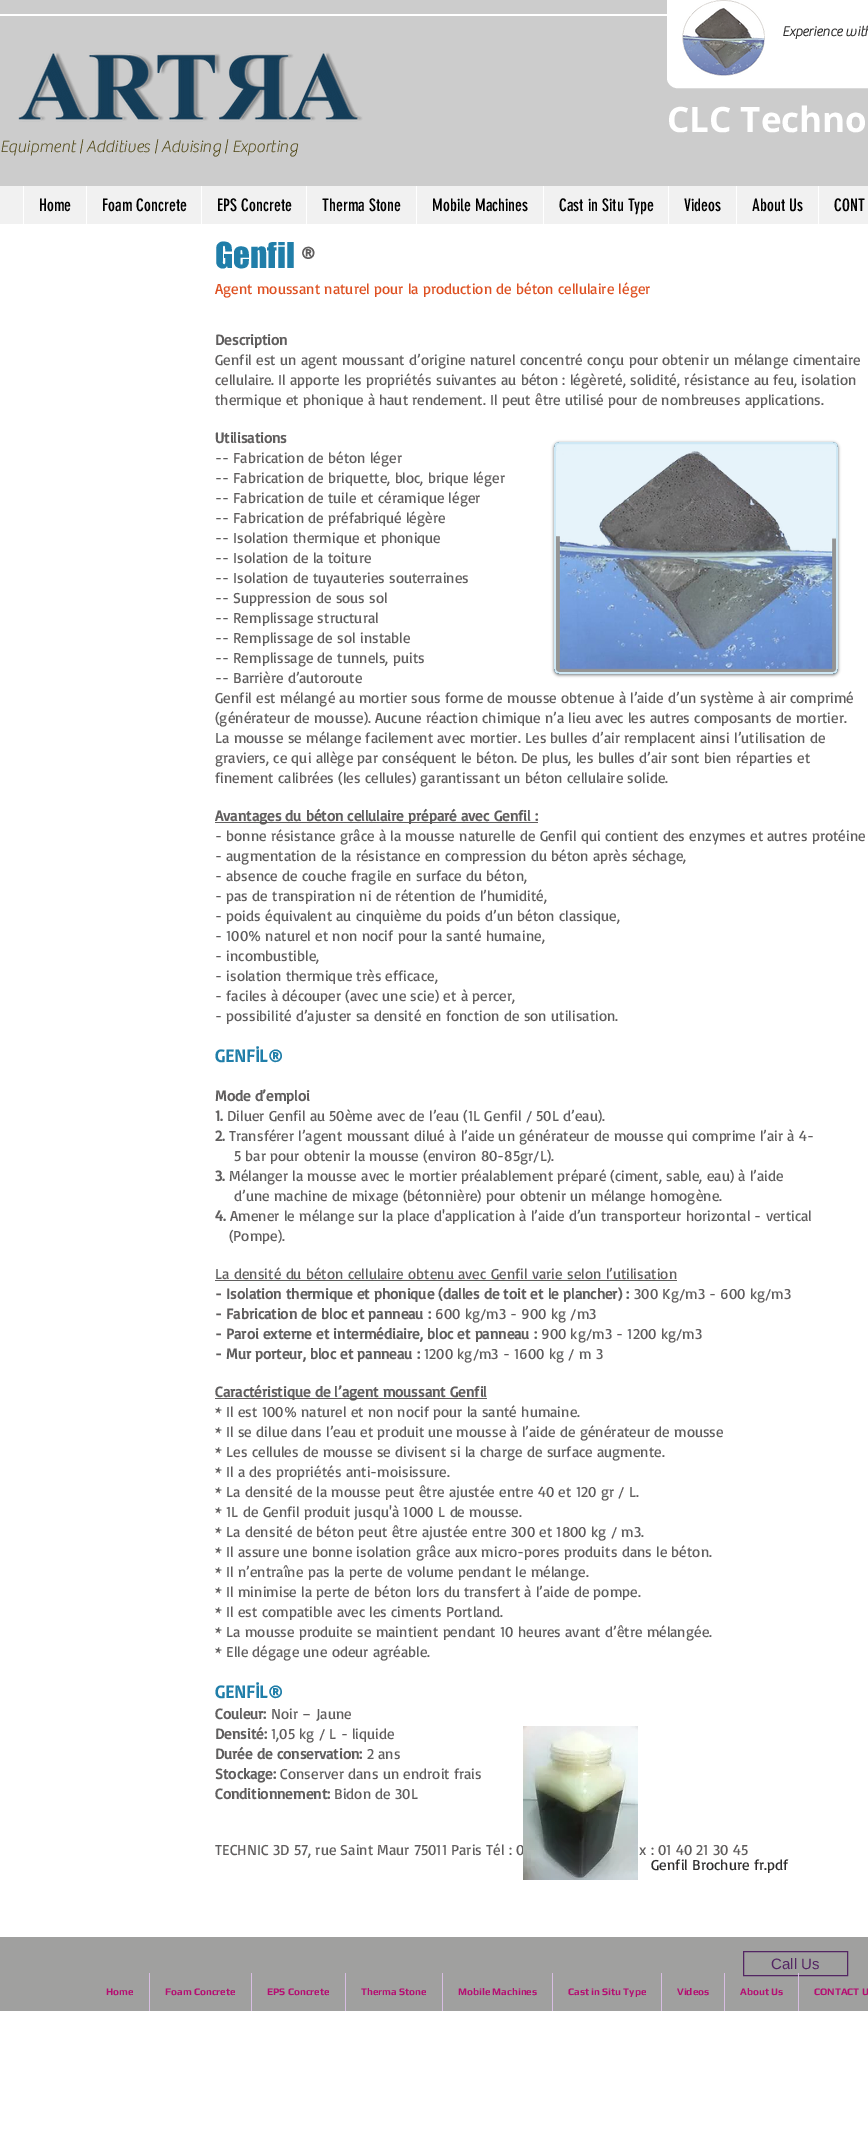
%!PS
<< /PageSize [868 2138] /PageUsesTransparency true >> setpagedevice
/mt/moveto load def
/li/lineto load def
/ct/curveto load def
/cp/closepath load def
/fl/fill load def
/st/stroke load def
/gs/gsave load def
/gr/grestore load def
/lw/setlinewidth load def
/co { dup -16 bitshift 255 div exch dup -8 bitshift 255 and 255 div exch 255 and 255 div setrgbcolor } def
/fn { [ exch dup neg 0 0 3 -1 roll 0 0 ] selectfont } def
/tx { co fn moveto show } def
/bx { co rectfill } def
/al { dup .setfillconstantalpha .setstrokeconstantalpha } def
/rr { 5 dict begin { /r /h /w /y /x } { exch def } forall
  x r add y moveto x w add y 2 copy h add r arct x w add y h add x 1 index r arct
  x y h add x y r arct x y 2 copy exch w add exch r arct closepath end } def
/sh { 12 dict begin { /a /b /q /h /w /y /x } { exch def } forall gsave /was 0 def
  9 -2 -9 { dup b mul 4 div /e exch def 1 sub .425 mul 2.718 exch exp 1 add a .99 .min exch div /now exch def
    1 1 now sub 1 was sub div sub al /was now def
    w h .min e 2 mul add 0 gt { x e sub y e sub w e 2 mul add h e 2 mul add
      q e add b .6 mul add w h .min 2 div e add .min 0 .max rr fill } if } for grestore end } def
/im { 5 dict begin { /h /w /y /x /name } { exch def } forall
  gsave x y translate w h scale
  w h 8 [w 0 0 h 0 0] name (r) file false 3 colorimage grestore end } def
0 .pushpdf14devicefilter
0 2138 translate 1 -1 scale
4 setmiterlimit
0 0 868 2138 16#FFFFFF bx
0 0 868 186 16#CCCCCC bx
0 14 667 2 16#FFFFFF bx
667.5 .5 mt 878.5 .5 li 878.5 78 li 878.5 83 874 87.5 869 87.5 ct 677 87.5 li 672 87.5 667.5 83 667.5 78 ct cp gs fl gr
st
(media/1.raw) 682 0 83 76 im
(media/2.raw) 18 51 345 71 im
0 186 868 38 16#F1F1F1 bx
23 186 1 38 16#FFFFFF bx
86 186 1 38 16#FFFFFF bx
201 186 1 38 16#FFFFFF bx
306 186 1 38 16#FFFFFF bx
416 186 1 38 16#FFFFFF bx
543 186 1 38 16#FFFFFF bx
668 186 1 38 16#FFFFFF bx
736 186 1 38 16#FFFFFF bx
818 186 1 38 16#FFFFFF bx
215 822 323 1 16#605E5E bx
215 1280 462 1 16#605E5E bx
215 1398 272 1 16#605E5E bx
gs
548 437 mt 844 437 li 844 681 li 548 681 li cp 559 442 mt 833 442 li 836 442 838 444 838 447 ct 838 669 li 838 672 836 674 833 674 ct 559 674 li 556 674 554 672 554 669 ct 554 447 li 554 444 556 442 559 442 ct cp eoclip newpath
16#000000 co
554 443 284 232 5 1.5 .5 sh
gr
0.1 al
16#0088CB co
554 442 284 232 5 rr fl
2 lw
555 443 282 230 4 rr st
1 al
(media/3.raw) 556 451 280 221 im
0 1937 868 74 16#A0A09F bx
16#532563 co
1 lw
743.5 1951.5 104 24 rectstroke
149 1973 1 38 16#D8BDE2 bx
251 1973 1 38 16#D8BDE2 bx
345 1973 1 38 16#D8BDE2 bx
442 1973 1 38 16#D8BDE2 bx
552 1973 1 38 16#D8BDE2 bx
661 1973 1 38 16#D8BDE2 bx
724 1973 1 38 16#D8BDE2 bx
798 1973 1 38 16#D8BDE2 bx
(Experience with) 782 36 /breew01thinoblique-Bold 14 16#2F2E2E tx
(CLC Techno) 667 132 /OpenSans-Bold 35 16#FFFFFF tx
(Equipment | Additives | Advising | Exporting) 0 152 /breew01thinoblique-Thin 17 16#4A410D tx
(Home) 39 211 /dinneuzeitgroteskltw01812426-Regular 17 16#000000 tx
(Foam Concrete) 102 211 /dinneuzeitgroteskltw01812426-Regular 17 16#000000 tx
(EPS Concrete) 217 211 /dinneuzeitgroteskltw01812426-Regular 17 16#000000 tx
(Therma Stone) 322 211 /dinneuzeitgroteskltw01812426-Regular 17 16#000000 tx
(Mobile Machines) 432 211 /dinneuzeitgroteskltw01812426-Regular 17 16#000000 tx
(Cast in Situ Type) 559 211 /dinneuzeitgroteskltw01812426-Regular 17 16#000000 tx
(Videos) 684 211 /dinneuzeitgroteskltw01812426-Regular 17 16#000000 tx
(About Us) 752 211 /dinneuzeitgroteskltw01812426-Regular 17 16#000000 tx
(CONT) 834 211 /dinneuzeitgroteskltw01812426-Regular 17 16#000000 tx
(Genfil) 215 268 /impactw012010-Regular 33 16#207EA9 tx
(®) 301 268 /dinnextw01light-Bold 30 16#605E5E tx
(Agent moussant naturel pour la production de béton cellulaire léger) 215 294 /Basic-Regular 15 16#DE5021 tx
(Description) 215 345 /Basic-Bold 15 16#605E5E tx
(Genfil est un agent moussant d’origine naturel concentré conçu pour obtenir un mélange cimentaire) 215 365 /Basic-Regular 15 16#605E5E tx
(cellulaire. Il apporte les propriétés suivantes au béton : légèreté, solidité, résistance au feu, isolation) 215 385 /Basic-Regular 15 16#605E5E tx
(thermique et phonique à haut rendement. Il peut être utilisé pour de nombreuses applications.) 215 405 /Basic-Regular 15 16#605E5E tx
(Utilisations) 215 443 /Basic-Bold 15 16#605E5E tx
(-- Fabrication de béton léger) 215 463 /Basic-Regular 15 16#605E5E tx
(-- Fabrication de briquette, bloc, brique léger) 215 483 /Basic-Regular 15 16#605E5E tx
(-- Fabrication de tuile et céramique léger) 215 503 /Basic-Regular 15 16#605E5E tx
(-- Fabrication de préfabriqué légère) 215 523 /Basic-Regular 15 16#605E5E tx
(-- Isolation thermique et phonique) 215 543 /Basic-Regular 15 16#605E5E tx
(-- Isolation de la toiture) 215 563 /Basic-Regular 15 16#605E5E tx
(-- Isolation de tuyauteries souterraines) 215 583 /Basic-Regular 15 16#605E5E tx
(-- Suppression de sous sol) 215 603 /Basic-Regular 15 16#605E5E tx
(-- Remplissage structural) 215 623 /Basic-Regular 15 16#605E5E tx
(-- Remplissage de sol instable) 215 643 /Basic-Regular 15 16#605E5E tx
(-- Remplissage de tunnels, puits) 215 663 /Basic-Regular 15 16#605E5E tx
(-- Barrière d’autoroute) 215 683 /Basic-Regular 15 16#605E5E tx
(Genfil est mélangé au mortier sous forme de mousse obtenue à l’aide d’un système à air comprimé) 215 703 /Basic-Regular 15 16#605E5E tx
(\(générateur de mousse\). Aucune réaction chimique n’a lieu avec les autres composants de mortier.) 215 723 /Basic-Regular 15 16#605E5E tx
(La mousse se mélange facilement avec mortier. Les bulles d’air remplacent ainsi l’utilisation de) 215 743 /Basic-Regular 15 16#605E5E tx
(graviers, ce qui allège par conséquent le béton. De plus, les bulles d’air sont bien réparties et) 215 763 /Basic-Regular 15 16#605E5E tx
(finement calibrées \(les cellules\) garantissant un béton cellulaire solide.) 215 783 /Basic-Regular 15 16#605E5E tx
(Avantages du béton cellulaire préparé avec Genfil :) 215 821 /Basic-Bold 15 16#605E5E tx
(- bonne résistance grâce à la mousse naturelle de Genfil qui contient des enzymes et autres protéine) 215 841 /Basic-Regular 15 16#605E5E tx
(- augmentation de la résistance en compression du béton après séchage,) 215 861 /Basic-Regular 15 16#605E5E tx
(- absence de couche fragile en surface du béton,) 215 881 /Basic-Regular 15 16#605E5E tx
(- pas de transpiration ni de rétention de l’humidité,) 215 901 /Basic-Regular 15 16#605E5E tx
(- poids équivalent au cinquième du poids d’un béton classique,) 215 921 /Basic-Regular 15 16#605E5E tx
(- 100% naturel et non nocif pour la santé humaine,) 215 941 /Basic-Regular 15 16#605E5E tx
(- incombustible,) 215 961 /Basic-Regular 15 16#605E5E tx
(- isolation thermique très efficace,) 215 981 /Basic-Regular 15 16#605E5E tx
(- faciles à découper \(avec une scie\) et à percer,) 215 1001 /Basic-Regular 15 16#605E5E tx
(- possibilité d’ajuster sa densité en fonction de son utilisation.) 215 1021 /Basic-Regular 15 16#605E5E tx
(GENFİL®) 215 1062 /Basic-Bold 18 16#207EA9 tx
(Mode d’emploi) 215 1101 /Basic-Bold 15 16#605E5E tx
(1.) 215 1121 /Basic-Bold 15 16#605E5E tx
(Diluer Genfil au 50ème avec de l’eau \(1L Genfil / 50L d’eau\).) 227 1121 /Basic-Regular 15 16#605E5E tx
(2.) 215 1141 /Basic-Bold 15 16#605E5E tx
(Transférer l’agent moussant dilué à l’aide un générateur de mousse qui comprime l’air à 4-) 229 1141 /Basic-Regular 15 16#605E5E tx
(5 bar pour obtenir la mousse \(environ 80-85gr/L\).) 234 1161 /Basic-Regular 15 16#605E5E tx
(3.) 215 1181 /Basic-Bold 15 16#605E5E tx
(Mélanger la mousse avec le mortier préalablement préparé \(ciment, sable, eau\) à l’aide) 229 1181 /Basic-Regular 15 16#605E5E tx
(d’une machine de mixage \(bétonnière\) pour obtenir un mélange homogène.) 234 1201 /Basic-Regular 15 16#605E5E tx
(4.) 215 1221 /Basic-Bold 15 16#605E5E tx
(Amener le mélange sur la place d'application à l’aide d’un transporteur horizontal - vertical) 230 1221 /Basic-Regular 15 16#605E5E tx
(\(Pompe\).) 229 1241 /Basic-Regular 15 16#605E5E tx
(La densité du béton cellulaire obtenu avec Genfil varie selon l’utilisation) 215 1279 /Basic-Regular 15 16#605E5E tx
(- Isolation thermique et phonique \(dalles de toit et le plancher\) :) 215 1299 /Basic-Bold 15 16#605E5E tx
(300 Kg/m3 - 600 kg/m3) 634 1299 /Basic-Regular 15 16#605E5E tx
(- Fabrication de bloc et panneau :) 215 1319 /Basic-Bold 15 16#605E5E tx
(600 kg/m3 - 900 kg /m3) 435 1319 /Basic-Regular 15 16#605E5E tx
(- Paroi externe et intermédiaire, bloc et panneau :) 215 1339 /Basic-Bold 15 16#605E5E tx
(900 kg/m3 - 1200 kg/m3) 541 1339 /Basic-Regular 15 16#605E5E tx
(- Mur porteur, bloc et panneau :) 215 1359 /Basic-Bold 15 16#605E5E tx
(1200 kg/m3 - 1600 kg / m 3) 424 1359 /Basic-Regular 15 16#605E5E tx
(Caractéristique de l’agent moussant Genfil) 215 1397 /Basic-Bold 15 16#605E5E tx
(* Il est 100% naturel et non nocif pour la santé humaine.) 215 1417 /Basic-Regular 15 16#605E5E tx
(* Il se dilue dans l’eau et produit une mousse à l’aide de générateur de mousse) 215 1437 /Basic-Regular 15 16#605E5E tx
(* Les cellules de mousse se divisent si la charge de surface augmente.) 215 1457 /Basic-Regular 15 16#605E5E tx
(* Il a des propriétés anti-moisissure.) 215 1477 /Basic-Regular 15 16#605E5E tx
(* La densité de la mousse peut être ajustée entre 40 et 120 gr / L.) 215 1497 /Basic-Regular 15 16#605E5E tx
(* 1L de Genfil produit jusqu'à 1000 L de mousse.) 215 1517 /Basic-Regular 15 16#605E5E tx
(* La densité de béton peut être ajustée entre 300 et 1800 kg / m3.) 215 1537 /Basic-Regular 15 16#605E5E tx
(* Il assure une bonne isolation grâce aux micro-pores produits dans le béton.) 215 1557 /Basic-Regular 15 16#605E5E tx
(* Il n’entraîne pas la perte de volume pendant le mélange.) 215 1577 /Basic-Regular 15 16#605E5E tx
(* Il minimise la perte de béton lors du transfert à l’aide de pompe.) 215 1597 /Basic-Regular 15 16#605E5E tx
(* Il est compatible avec les ciments Portland.) 215 1617 /Basic-Regular 15 16#605E5E tx
(* La mousse produite se maintient pendant 10 heures avant d’être mélangée.) 215 1637 /Basic-Regular 15 16#605E5E tx
(* Elle dégage une odeur agréable.) 215 1657 /Basic-Regular 15 16#605E5E tx
(GENFİL®) 215 1698 /Basic-Bold 18 16#207EA9 tx
(Couleur:) 215 1719 /Basic-Bold 15 16#605E5E tx
(Noir – Jaune) 271 1719 /Basic-Regular 15 16#605E5E tx
(Densité:) 215 1739 /Basic-Bold 15 16#605E5E tx
(1,05 kg / L - liquide) 271 1739 /Basic-Regular 15 16#605E5E tx
(Durée de conservation:) 215 1759 /Basic-Bold 15 16#605E5E tx
(2 ans) 367 1759 /Basic-Regular 15 16#605E5E tx
(Stockage:) 215 1779 /Basic-Bold 15 16#605E5E tx
(Conserver dans un endroit frais) 280 1779 /Basic-Regular 15 16#605E5E tx
(Conditionnement:) 215 1799 /Basic-Bold 15 16#605E5E tx
(Bidon de 30L) 334 1799 /Basic-Regular 15 16#605E5E tx
(TECHNIC 3D 57, rue Saint Maur 75011 Paris Tél : 0) 215 1855 /Basic-Regular 15 16#605E5E tx
(x : 01 40 21 30 45) 639 1855 /Basic-Regular 15 16#605E5E tx
(media/4.raw) 523 1726 115 154 im
(Genfil Brochure fr.pdf) 651 1870 /Basic-Regular 15 16#2F2E2E tx
(Call Us) 771 1969 /LiberationSans-Regular 15 16#532563 tx
(Home) 106 1995 /Play-Bold 10 16#B50E72 tx
(Foam Concrete) 165 1995 /Play-Bold 10 16#B50E72 tx
(EPS Concrete) 267 1995 /Play-Bold 10 16#B50E72 tx
(Therma Stone) 361 1995 /Play-Bold 10 16#B50E72 tx
(Mobile Machines) 458 1995 /Play-Bold 10 16#B50E72 tx
(Cast in Situ Type) 568 1995 /Play-Bold 10 16#B50E72 tx
(Videos) 677 1995 /Play-Bold 10 16#B50E72 tx
(About Us) 740 1995 /Play-Bold 10 16#B50E72 tx
(CONTACT U) 814 1995 /Play-Bold 10 16#B50E72 tx
.poppdf14devicefilter showpage
